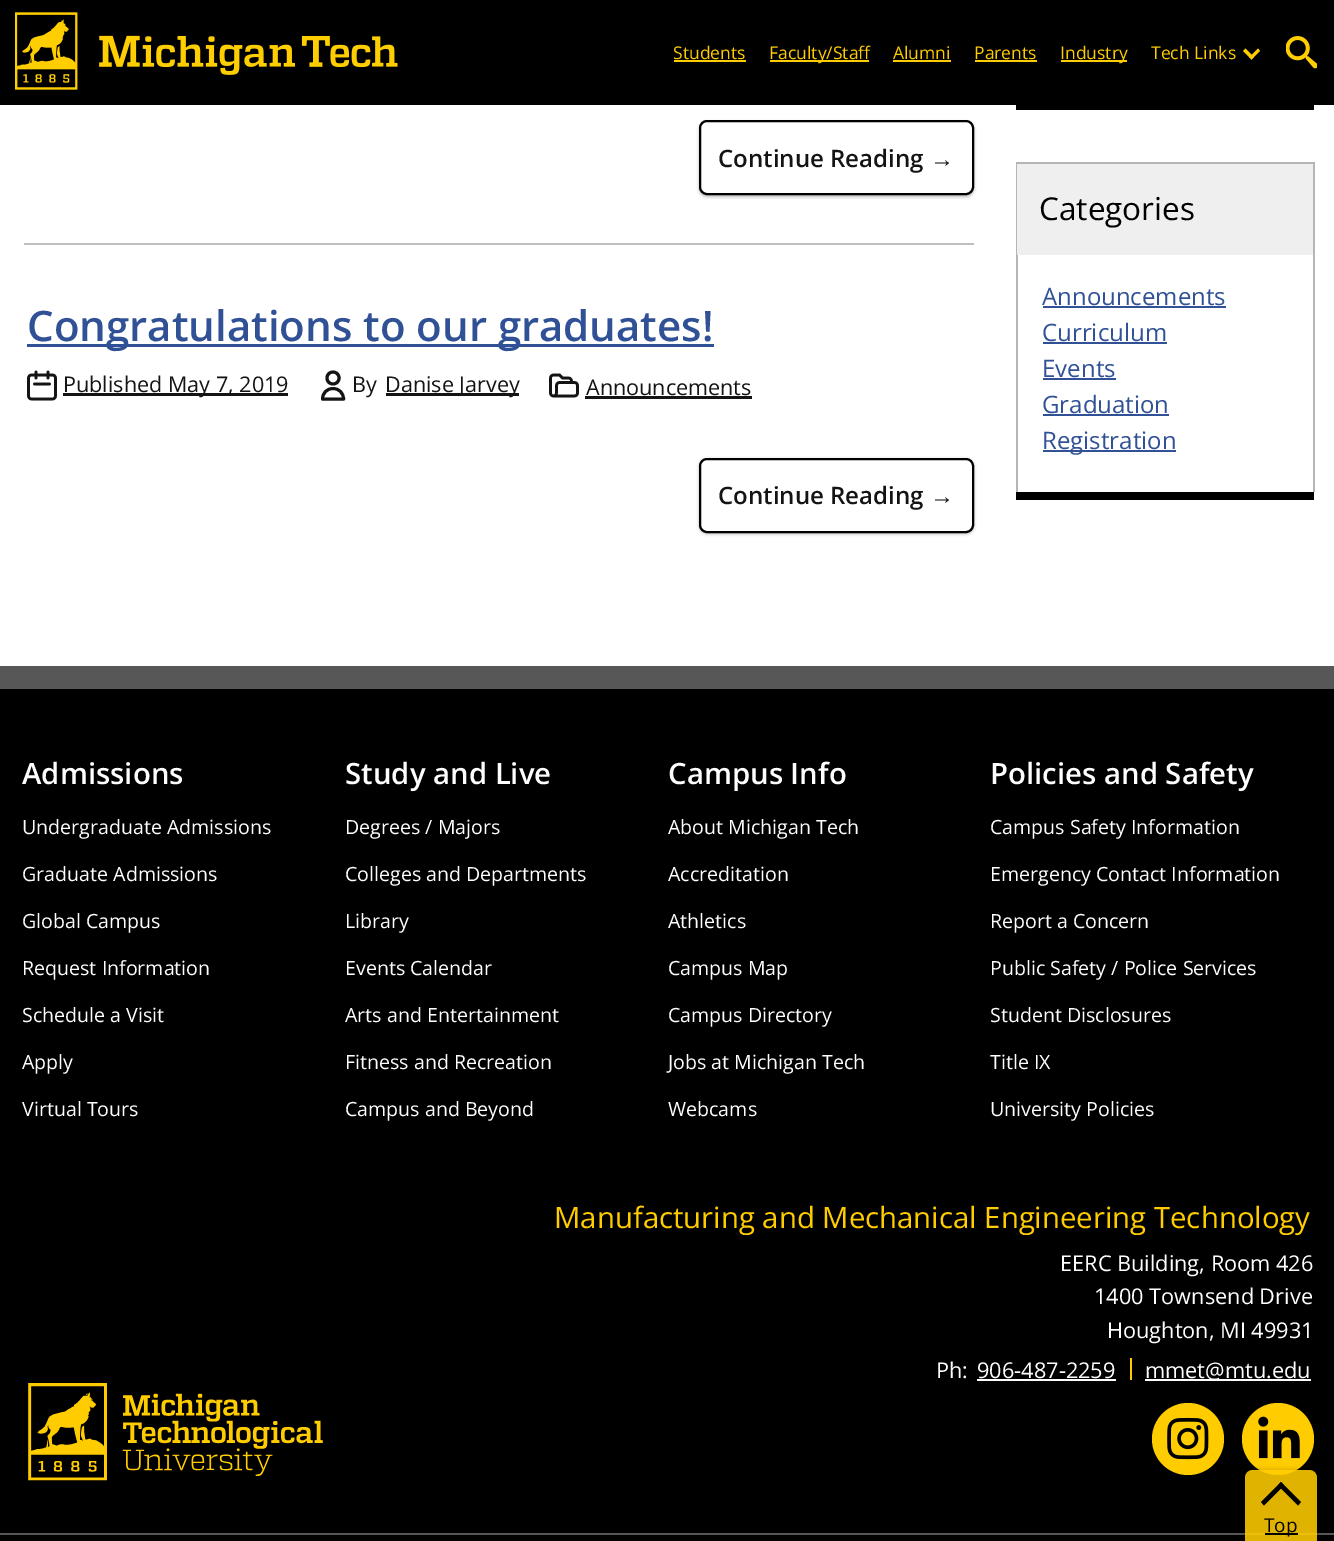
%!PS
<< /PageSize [1334 1541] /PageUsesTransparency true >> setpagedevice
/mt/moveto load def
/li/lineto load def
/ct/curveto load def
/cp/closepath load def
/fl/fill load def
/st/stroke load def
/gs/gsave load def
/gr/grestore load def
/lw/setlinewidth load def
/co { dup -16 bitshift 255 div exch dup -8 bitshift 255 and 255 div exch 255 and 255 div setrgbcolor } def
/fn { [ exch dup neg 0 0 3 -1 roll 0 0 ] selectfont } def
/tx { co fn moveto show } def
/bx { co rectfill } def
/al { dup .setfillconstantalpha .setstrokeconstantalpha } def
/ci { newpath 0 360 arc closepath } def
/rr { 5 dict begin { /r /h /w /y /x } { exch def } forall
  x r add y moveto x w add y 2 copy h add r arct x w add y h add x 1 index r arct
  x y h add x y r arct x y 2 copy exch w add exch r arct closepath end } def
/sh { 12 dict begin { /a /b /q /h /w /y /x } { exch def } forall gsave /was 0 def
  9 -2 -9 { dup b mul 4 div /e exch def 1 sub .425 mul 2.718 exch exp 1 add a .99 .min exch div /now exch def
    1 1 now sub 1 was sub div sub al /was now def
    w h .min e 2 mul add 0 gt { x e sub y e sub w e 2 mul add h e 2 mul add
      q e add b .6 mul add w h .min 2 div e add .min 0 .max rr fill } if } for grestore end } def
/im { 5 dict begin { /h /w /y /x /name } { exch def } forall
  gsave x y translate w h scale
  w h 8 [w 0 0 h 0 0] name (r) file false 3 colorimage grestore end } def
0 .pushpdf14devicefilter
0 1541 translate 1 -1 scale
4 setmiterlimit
0 0 1334 1541 16#FFFFFF bx
0 0 1334 105 16#000000 bx
(media/1.raw) 15 12 383 78 im
674 60 72 2 16#FFCC00 bx
770 60 99 2 16#FFCC00 bx
893 60 58 2 16#FFCC00 bx
975 60 62 2 16#FFCC00 bx
1061 60 66 2 16#FFCC00 bx
1258 48.5 mt 1260 51 li 1251.5 59.5 li 1249.5 57 li cp fl
1245.5 48.5 mt 1254 57 li 1251.5 59.5 li 1243 51 li cp fl
(media/2.raw) 1286 36 31 33 im
gs
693 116 mt 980 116 li 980 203 li 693 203 li cp 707 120 mt 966 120 li 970.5 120 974 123.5 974 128 ct 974 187 li 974 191.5 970.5 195 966 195 ct 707 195 li 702.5 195 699 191.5 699 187 ct 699 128 li 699 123.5 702.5 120 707 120 ct cp eoclip newpath
16#000000 co
699 122 275 75 8 1.5 .25 sh
gr
16#000000 co
2 lw
700 121 273 73 7 rr st
24 243 950 2 16#BFBFBF bx
27 344 687 3 16#315196 bx
(media/3.raw) 27 370 30 31 im
63 393 225 3 16#141414 bx
3 lw
1 setlinecap
1 setlinejoin
339 378 mt 339 386 327 386 327 378 ct 327 370 339 370 339 378 ct cp 333 388.5 mt 327 388.5 322.5 393 322.5 399 ct 343.5 399 li 343.5 393 339 388.5 333 388.5 ct cp st
386 393 133 3 16#141414 bx
(media/4.raw) 549 373 30 25 im
585 396 167 3 16#141414 bx
gs
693 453 mt 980 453 li 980 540 li 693 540 li cp 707 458 mt 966 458 li 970.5 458 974 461.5 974 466 ct 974 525 li 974 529.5 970.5 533 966 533 ct 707 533 li 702.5 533 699 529.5 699 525 ct 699 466 li 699 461.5 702.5 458 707 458 ct cp eoclip newpath
16#000000 co
699 459 275 75 8 1.5 .25 sh
gr
16#000000 co
2 lw
0 setlinecap
0 setlinejoin
700 459 273 73 7 rr st
1016 105 298 5 16#000000 bx
1016 492 298 8 16#000000 bx
1016 162 298 2 16#B5B5B5 bx
1313 162 2 330 16#B5B5B5 bx
1016 162 2 330 16#B5B5B5 bx
1017 164 296 91 16#EFEFEF bx
1043 306 183 2 16#315196 bx
1043 342 124 2 16#315196 bx
1043 378 73 2 16#315196 bx
1043 414 126 2 16#315196 bx
1043 450 133 2 16#315196 bx
0 689 1334 852 16#000000 bx
16#FFCC00 co
1278 1439 36 ci fl
0 1533 1334 2 16#575757 bx
gs
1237 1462 mt 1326 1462 li 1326 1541 li 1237 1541 li cp 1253 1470 mt 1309 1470 li 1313.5 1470 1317 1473.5 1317 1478 ct 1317 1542 li 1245 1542 li 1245 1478 li 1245 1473.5 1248.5 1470 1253 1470 ct cp eoclip newpath
16#000000 co
1244 1469 75 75 9 2 .15 sh
gr
0.88 al
16#FFCC00 co
1253 1470 mt 1309 1470 li 1313.5 1470 1317 1473.5 1317 1478 ct 1317 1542 li 1245 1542 li 1245 1478 li 1245 1473.5 1248.5 1470 1253 1470 ct cp fl
1 al
16#000000 co
1261 1502 mt 1281 1482 li 1284 1485.5 li 1264 1505.5 li cp fl
1278 1485.5 mt 1281 1482 li 1301 1502 li 1298 1505.5 li cp fl
1265 1533 33 2 16#000000 bx
0 666 1334 23 16#575757 bx
977 1379 139 2 16#FFFFFF bx
1130 1358 2 22 16#FFCC00 bx
1145 1379 166 2 16#FFFFFF bx
16#FFCC00 co
1188 1439 36 ci fl
(media/5.raw) 1167 1417 42 43 im
(media/6.raw) 1258 1416 42 43 im
(media/7.raw) 28 1383 295 98 im
(Students) 673 59 /OpenSans-Regular 17.5 16#FFCC00 tx
(Faculty/Staff) 769 59 /OpenSans-Regular 17.5 16#FFCC00 tx
(Alumni) 893 59 /OpenSans-Regular 17.5 16#FFCC00 tx
(Parents) 974 59 /OpenSans-Regular 17.5 16#FFCC00 tx
(Industry) 1060 59 /OpenSans-Regular 17.5 16#FFCC00 tx
(Tech Links) 1151 59 /OpenSans-Regular 17.5 16#FFCC00 tx
(Continue Reading) 718 167 /OpenSans-SemiBold 24 16#141414 tx
(→) 930 167 /LiberationSans-Bold 24 16#141414 tx
(Congratulations to our graduates!) 27 341 /OpenSans-SemiBold 42 16#315196 tx
(Published May 7, 2019) 63 392 /OpenSans-Regular 21.6 16#141414 tx
(By) 352 392 /OpenSans-Regular 21.6 16#141414 tx
(Danise Jarvey) 385 392 /OpenSans-Regular 21.6 16#141414 tx
(Announcements) 586 395 /OpenSans-Regular 21.6 16#141414 tx
(Continue Reading) 718 504 /OpenSans-SemiBold 24 16#141414 tx
(→) 930 504 /LiberationSans-Bold 24 16#141414 tx
(Categories) 1039 220 /OpenSans-Regular 31.5 16#000000 tx
(Announcements) 1042 305 /OpenSans-Regular 24 16#315196 tx
(Curriculum) 1042 341 /OpenSans-Regular 24 16#315196 tx
(Events) 1042 377 /OpenSans-Regular 24 16#315196 tx
(Graduation) 1042 413 /OpenSans-Regular 24 16#315196 tx
(Registration) 1042 449 /OpenSans-Regular 24 16#315196 tx
(Top) 1264 1532 /OpenSans-Regular 19 16#000000 tx
(Admissions) 22 784 /OpenSans-SemiBold 29.35 16#FFFFFF tx
(Undergraduate Admissions) 22 834 /OpenSans-Regular 19.6 16#FFFFFF tx
(Graduate Admissions) 22 881 /OpenSans-Regular 19.6 16#FFFFFF tx
(Global Campus) 22 928 /OpenSans-Regular 19.6 16#FFFFFF tx
(Request Information) 22 975 /OpenSans-Regular 19.6 16#FFFFFF tx
(Schedule a Visit) 22 1022 /OpenSans-Regular 19.6 16#FFFFFF tx
(Apply) 22 1069 /OpenSans-Regular 19.6 16#FFFFFF tx
(Virtual Tours) 22 1116 /OpenSans-Regular 19.6 16#FFFFFF tx
(Study and Live) 345 784 /OpenSans-SemiBold 29.35 16#FFFFFF tx
(Degrees / Majors) 345 834 /OpenSans-Regular 19.6 16#FFFFFF tx
(Colleges and Departments) 345 881 /OpenSans-Regular 19.6 16#FFFFFF tx
(Library) 345 928 /OpenSans-Regular 19.6 16#FFFFFF tx
(Events Calendar) 345 975 /OpenSans-Regular 19.6 16#FFFFFF tx
(Arts and Entertainment) 345 1022 /OpenSans-Regular 19.6 16#FFFFFF tx
(Fitness and Recreation) 345 1069 /OpenSans-Regular 19.6 16#FFFFFF tx
(Campus and Beyond) 345 1116 /OpenSans-Regular 19.6 16#FFFFFF tx
(Campus Info) 668 784 /OpenSans-SemiBold 29.35 16#FFFFFF tx
(About Michigan Tech) 668 834 /OpenSans-Regular 19.6 16#FFFFFF tx
(Accreditation) 668 881 /OpenSans-Regular 19.6 16#FFFFFF tx
(Athletics) 668 928 /OpenSans-Regular 19.6 16#FFFFFF tx
(Campus Map) 668 975 /OpenSans-Regular 19.6 16#FFFFFF tx
(Campus Directory) 668 1022 /OpenSans-Regular 19.6 16#FFFFFF tx
(Jobs at Michigan Tech) 668 1069 /OpenSans-Regular 19.6 16#FFFFFF tx
(Webcams) 668 1116 /OpenSans-Regular 19.6 16#FFFFFF tx
(Policies and Safety) 990 784 /OpenSans-SemiBold 29.35 16#FFFFFF tx
(Campus Safety Information) 990 834 /OpenSans-Regular 19.6 16#FFFFFF tx
(Emergency Contact Information) 990 881 /OpenSans-Regular 19.6 16#FFFFFF tx
(Report a Concern) 990 928 /OpenSans-Regular 19.6 16#FFFFFF tx
(Public Safety / Police Services) 990 975 /OpenSans-Regular 19.6 16#FFFFFF tx
(Student Disclosures) 990 1022 /OpenSans-Regular 19.6 16#FFFFFF tx
(Title IX) 990 1069 /OpenSans-Regular 19.6 16#FFFFFF tx
(University Policies) 990 1116 /OpenSans-Regular 19.6 16#FFFFFF tx
(Manufacturing and Mechanical Engineering Technology) 554 1228 /OpenSans-Regular 29.35 16#FFCC00 tx
(EERC Building, Room 426) 1060 1271 /OpenSans-Regular 21.75 16#FFFFFF tx
(1400 Townsend Drive) 1094 1304 /OpenSans-Regular 21.75 16#FFFFFF tx
(Houghton, MI 49931) 1107 1338 /OpenSans-Regular 21.75 16#FFFFFF tx
(Ph:) 936 1378 /OpenSans-Regular 21.75 16#FFFFFF tx
(906-487-2259) 977 1378 /OpenSans-Regular 21.75 16#FFFFFF tx
(mmet@mtu.edu) 1145 1378 /OpenSans-Regular 21.75 16#FFFFFF tx
.poppdf14devicefilter showpage
